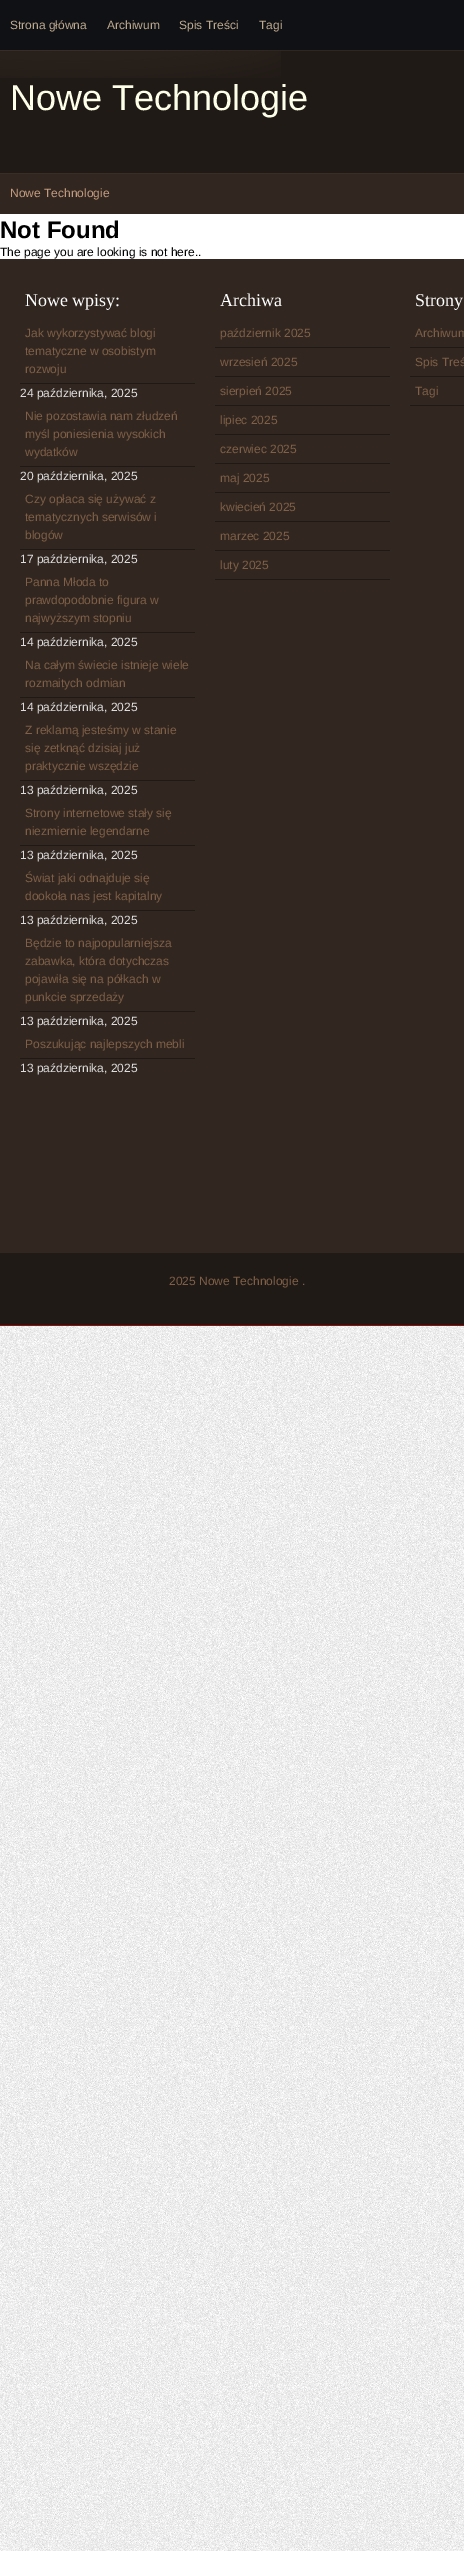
%!PS
<< /PageSize [464 2551] >> setpagedevice
/co { dup -16 bitshift 255 div exch dup -8 bitshift 255 and 255 div exch 255 and 255 div setrgbcolor } def
/fn { [ exch dup neg 0 0 3 -1 roll 0 0 ] selectfont } def
/tx { co fn moveto show } def
/bx { co rectfill } def
/im { 5 dict begin { /h /w /y /x /name } { exch def } forall
  gsave x y translate w h scale
  w h 8 [w 0 0 h 0 0] name (r) file false 3 colorimage grestore end } def
0 2551 translate 1 -1 scale
4 setmiterlimit
0 0 464 2551 16#FFFFFF bx
(media/1.raw) 0 1326 464 1225 im
(media/2.raw) 0 50 464 165 im
0 0 464 50 16#0F1114 bx
(media/3.raw) 0 50 281 28 im
0 259 464 994 16#312720 bx
20 383 175 1 16#1F1915 bx
20 466 175 1 16#1F1915 bx
20 549 175 1 16#1F1915 bx
20 632 175 1 16#1F1915 bx
20 697 175 1 16#1F1915 bx
20 780 175 1 16#1F1915 bx
20 845 175 1 16#1F1915 bx
20 910 175 1 16#1F1915 bx
20 1011 175 1 16#1F1915 bx
20 1058 175 1 16#1F1915 bx
215 347 175 1 16#1F1915 bx
215 376 175 1 16#1F1915 bx
215 405 175 1 16#1F1915 bx
215 434 175 1 16#1F1915 bx
215 463 175 1 16#1F1915 bx
215 492 175 1 16#1F1915 bx
215 521 175 1 16#1F1915 bx
215 550 175 1 16#1F1915 bx
215 579 175 1 16#1F1915 bx
410 347 54 1 16#1F1915 bx
410 376 54 1 16#1F1915 bx
410 405 54 1 16#1F1915 bx
0 1253 464 72 16#201A16 bx
0 1325 464 1 16#90100D bx
(Strona główna) 10 29 /LiberationSans-Regular 12 16#BFA98F tx
(Archiwum) 107 29 /LiberationSans-Regular 12 16#BFA98F tx
(Spis Treści) 179 29 /LiberationSans-Regular 12 16#BFA98F tx
(Tagi) 259 29 /LiberationSans-Regular 12 16#BFA98F tx
(Nowe Technologie) 10 110 /LiberationSans-Regular 36 16#FEFFE8 tx
(Nowe Technologie) 10 197 /LiberationSans-Regular 12 16#C39B7F tx
(Not Found) 0 238 /LiberationSans-Bold 24 16#000000 tx
(The page you are looking is not here..) 0 256 /LiberationSans-Regular 12 16#000000 tx
(Nowe wpisy:) 25 306 /LiberationSerif-Regular 18 16#FFFFFF tx
(Jak wykorzystywać blogi) 25 337 /LiberationSans-Regular 12 16#7F5F47 tx
(tematyczne w osobistym) 25 355 /LiberationSans-Regular 12 16#7F5F47 tx
(rozwoju) 25 373 /LiberationSans-Regular 12 16#7F5F47 tx
(24 października, 2025) 20 397 /LiberationSans-Regular 12 16#DDDDDD tx
(Nie pozostawia nam złudzeń) 25 420 /LiberationSans-Regular 12 16#7F5F47 tx
(myśl poniesienia wysokich) 25 438 /LiberationSans-Regular 12 16#7F5F47 tx
(wydatków) 25 456 /LiberationSans-Regular 12 16#7F5F47 tx
(20 października, 2025) 20 480 /LiberationSans-Regular 12 16#DDDDDD tx
(Czy opłaca się używać z) 25 503 /LiberationSans-Regular 12 16#7F5F47 tx
(tematycznych serwisów i) 25 521 /LiberationSans-Regular 12 16#7F5F47 tx
(blogów) 25 539 /LiberationSans-Regular 12 16#7F5F47 tx
(17 października, 2025) 20 563 /LiberationSans-Regular 12 16#DDDDDD tx
(Panna Młoda to) 25 586 /LiberationSans-Regular 12 16#7F5F47 tx
(prawdopodobnie figura w) 25 604 /LiberationSans-Regular 12 16#7F5F47 tx
(najwyższym stopniu) 25 622 /LiberationSans-Regular 12 16#7F5F47 tx
(14 października, 2025) 20 646 /LiberationSans-Regular 12 16#DDDDDD tx
(Na całym świecie istnieje wiele) 25 669 /LiberationSans-Regular 12 16#7F5F47 tx
(rozmaitych odmian) 25 687 /LiberationSans-Regular 12 16#7F5F47 tx
(14 października, 2025) 20 711 /LiberationSans-Regular 12 16#DDDDDD tx
(Z reklamą jesteśmy w stanie) 25 734 /LiberationSans-Regular 12 16#7F5F47 tx
(się zetknąć dzisiaj już) 25 752 /LiberationSans-Regular 12 16#7F5F47 tx
(praktycznie wszędzie) 25 770 /LiberationSans-Regular 12 16#7F5F47 tx
(13 października, 2025) 20 794 /LiberationSans-Regular 12 16#DDDDDD tx
(Strony internetowe stały się) 25 817 /LiberationSans-Regular 12 16#7F5F47 tx
(niezmiernie legendarne) 25 835 /LiberationSans-Regular 12 16#7F5F47 tx
(13 października, 2025) 20 859 /LiberationSans-Regular 12 16#DDDDDD tx
(Świat jaki odnajduje się) 25 882 /LiberationSans-Regular 12 16#7F5F47 tx
(dookoła nas jest kapitalny) 25 900 /LiberationSans-Regular 12 16#7F5F47 tx
(13 października, 2025) 20 924 /LiberationSans-Regular 12 16#DDDDDD tx
(Będzie to najpopularniejsza) 25 947 /LiberationSans-Regular 12 16#7F5F47 tx
(zabawka, która dotychczas) 25 965 /LiberationSans-Regular 12 16#7F5F47 tx
(pojawiła się na półkach w) 25 983 /LiberationSans-Regular 12 16#7F5F47 tx
(punkcie sprzedaży) 25 1001 /LiberationSans-Regular 12 16#7F5F47 tx
(13 października, 2025) 20 1025 /LiberationSans-Regular 12 16#DDDDDD tx
(Poszukując najlepszych mebli) 25 1048 /LiberationSans-Regular 12 16#7F5F47 tx
(13 października, 2025) 20 1072 /LiberationSans-Regular 12 16#DDDDDD tx
(Archiwa) 220 306 /LiberationSerif-Regular 18 16#FFFFFF tx
(październik 2025) 220 337 /LiberationSans-Regular 12 16#7F5F47 tx
(wrzesień 2025) 220 366 /LiberationSans-Regular 12 16#7F5F47 tx
(sierpień 2025) 220 395 /LiberationSans-Regular 12 16#7F5F47 tx
(lipiec 2025) 220 424 /LiberationSans-Regular 12 16#7F5F47 tx
(czerwiec 2025) 220 453 /LiberationSans-Regular 12 16#7F5F47 tx
(maj 2025) 220 482 /LiberationSans-Regular 12 16#7F5F47 tx
(kwiecień 2025) 220 511 /LiberationSans-Regular 12 16#7F5F47 tx
(marzec 2025) 220 540 /LiberationSans-Regular 12 16#7F5F47 tx
(luty 2025) 220 569 /LiberationSans-Regular 12 16#7F5F47 tx
(Strony) 415 306 /LiberationSerif-Regular 18 16#FFFFFF tx
(Archiwum) 415 337 /LiberationSans-Regular 12 16#7F5F47 tx
(Spis Treś) 415 366 /LiberationSans-Regular 12 16#7F5F47 tx
(Tagi) 415 395 /LiberationSans-Regular 12 16#7F5F47 tx
(2025 Nowe Technologie .) 169 1285 /LiberationSans-Regular 12 16#7F5F47 tx
showpage
